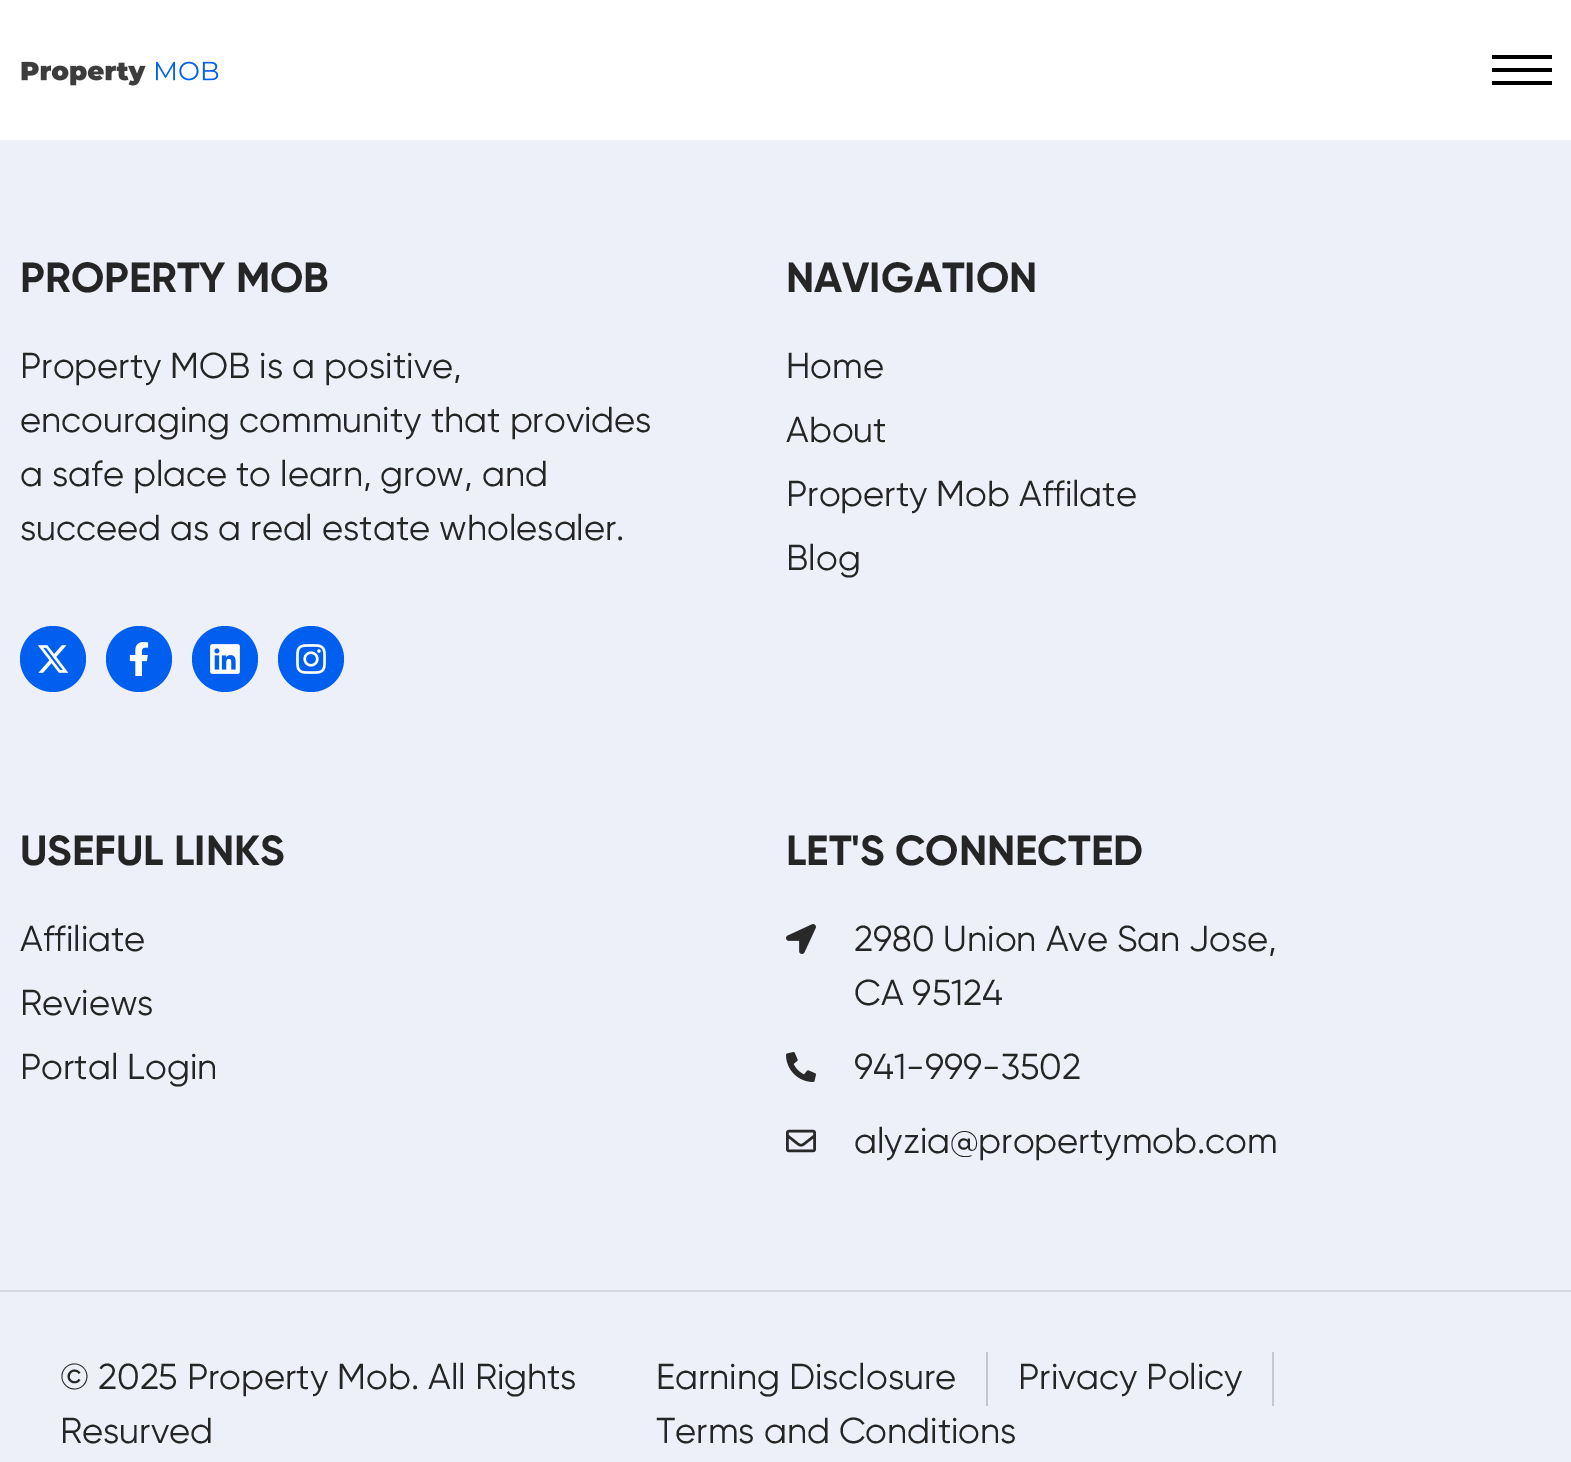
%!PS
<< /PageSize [1571 1462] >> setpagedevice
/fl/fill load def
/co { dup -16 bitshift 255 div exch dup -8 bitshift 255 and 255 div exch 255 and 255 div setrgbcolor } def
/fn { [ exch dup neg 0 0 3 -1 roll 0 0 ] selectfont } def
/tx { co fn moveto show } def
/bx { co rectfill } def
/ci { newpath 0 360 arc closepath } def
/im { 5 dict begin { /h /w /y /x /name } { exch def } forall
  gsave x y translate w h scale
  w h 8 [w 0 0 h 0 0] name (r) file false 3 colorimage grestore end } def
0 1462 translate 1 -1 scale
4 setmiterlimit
0 0 1571 1462 16#FFFFFF bx
(media/1.raw) 21 61 198 25 im
1492 81 60 4 16#000000 bx
1492 68 60 4 16#000000 bx
1492 55 60 4 16#000000 bx
0 140 1571 1150 16#EDF0F8 bx
16#015FEF co
53 659 33 ci fl
(media/2.raw) 37 645 32 28 im
139 659 33 ci fl
(media/3.raw) 129 642 20 34 im
225 659 33 ci fl
(media/4.raw) 210 644 30 30 im
311 659 33 ci fl
(media/5.raw) 296 644 30 30 im
(media/6.raw) 786 924 30 30 im
(media/7.raw) 786 1052 30 30 im
(media/8.raw) 786 1129 30 24 im
0 1292 1571 170 16#EDF0F8 bx
0 1290 1571 2 16#D5D8DF bx
986 1352 2 54 16#C5C7CE bx
1272 1352 2 54 16#C5C7CE bx
(PROPERTY MOB) 20 292 /Gilroy-Bold 42 16#252525 tx
(Property MOB is a positive,) 20 378 /Gilroy-Regular 36 16#252525 tx
(encouraging community that provides) 20 432 /Gilroy-Regular 36 16#252525 tx
(a safe place to learn, grow, and) 20 486 /Gilroy-Regular 36 16#252525 tx
(succeed as a real estate wholesaler.) 20 540 /Gilroy-Regular 36 16#252525 tx
(NAVIGATION) 786 292 /Gilroy-Bold 42 16#252525 tx
(Home) 786 378 /Gilroy-Regular 36 16#252525 tx
(About) 786 442 /Gilroy-Regular 36 16#252525 tx
(Property Mob Affilate) 786 506 /Gilroy-Regular 36 16#252525 tx
(Blog) 786 570 /Gilroy-Regular 36 16#252525 tx
(USEFUL LINKS) 20 865 /Gilroy-Bold 42 16#252525 tx
(Affiliate) 20 951 /Gilroy-Regular 36 16#252525 tx
(Reviews) 20 1015 /Gilroy-Regular 36 16#252525 tx
(Portal Login) 20 1079 /Gilroy-Regular 36 16#252525 tx
(LET'S CONNECTED) 786 865 /Gilroy-Bold 42 16#252525 tx
(2980 Union Ave San Jose,) 854 951 /Gilroy-Regular 36 16#252525 tx
(CA 95124) 854 1005 /Gilroy-Regular 36 16#252525 tx
(941-999-3502) 854 1079 /Gilroy-Regular 36 16#252525 tx
(alyzia@propertymob.com) 854 1153 /Gilroy-Regular 36 16#252525 tx
(© 2025 Property Mob. All Rights) 60 1389 /Gilroy-Regular 36 16#252525 tx
(Resurved) 60 1443 /Gilroy-Regular 36 16#252525 tx
(Earning Disclosure) 656 1389 /Gilroy-Regular 36 16#252525 tx
(Privacy Policy) 1018 1389 /Gilroy-Regular 36 16#252525 tx
(Terms and Conditions) 656 1443 /Gilroy-Regular 36 16#252525 tx
showpage
